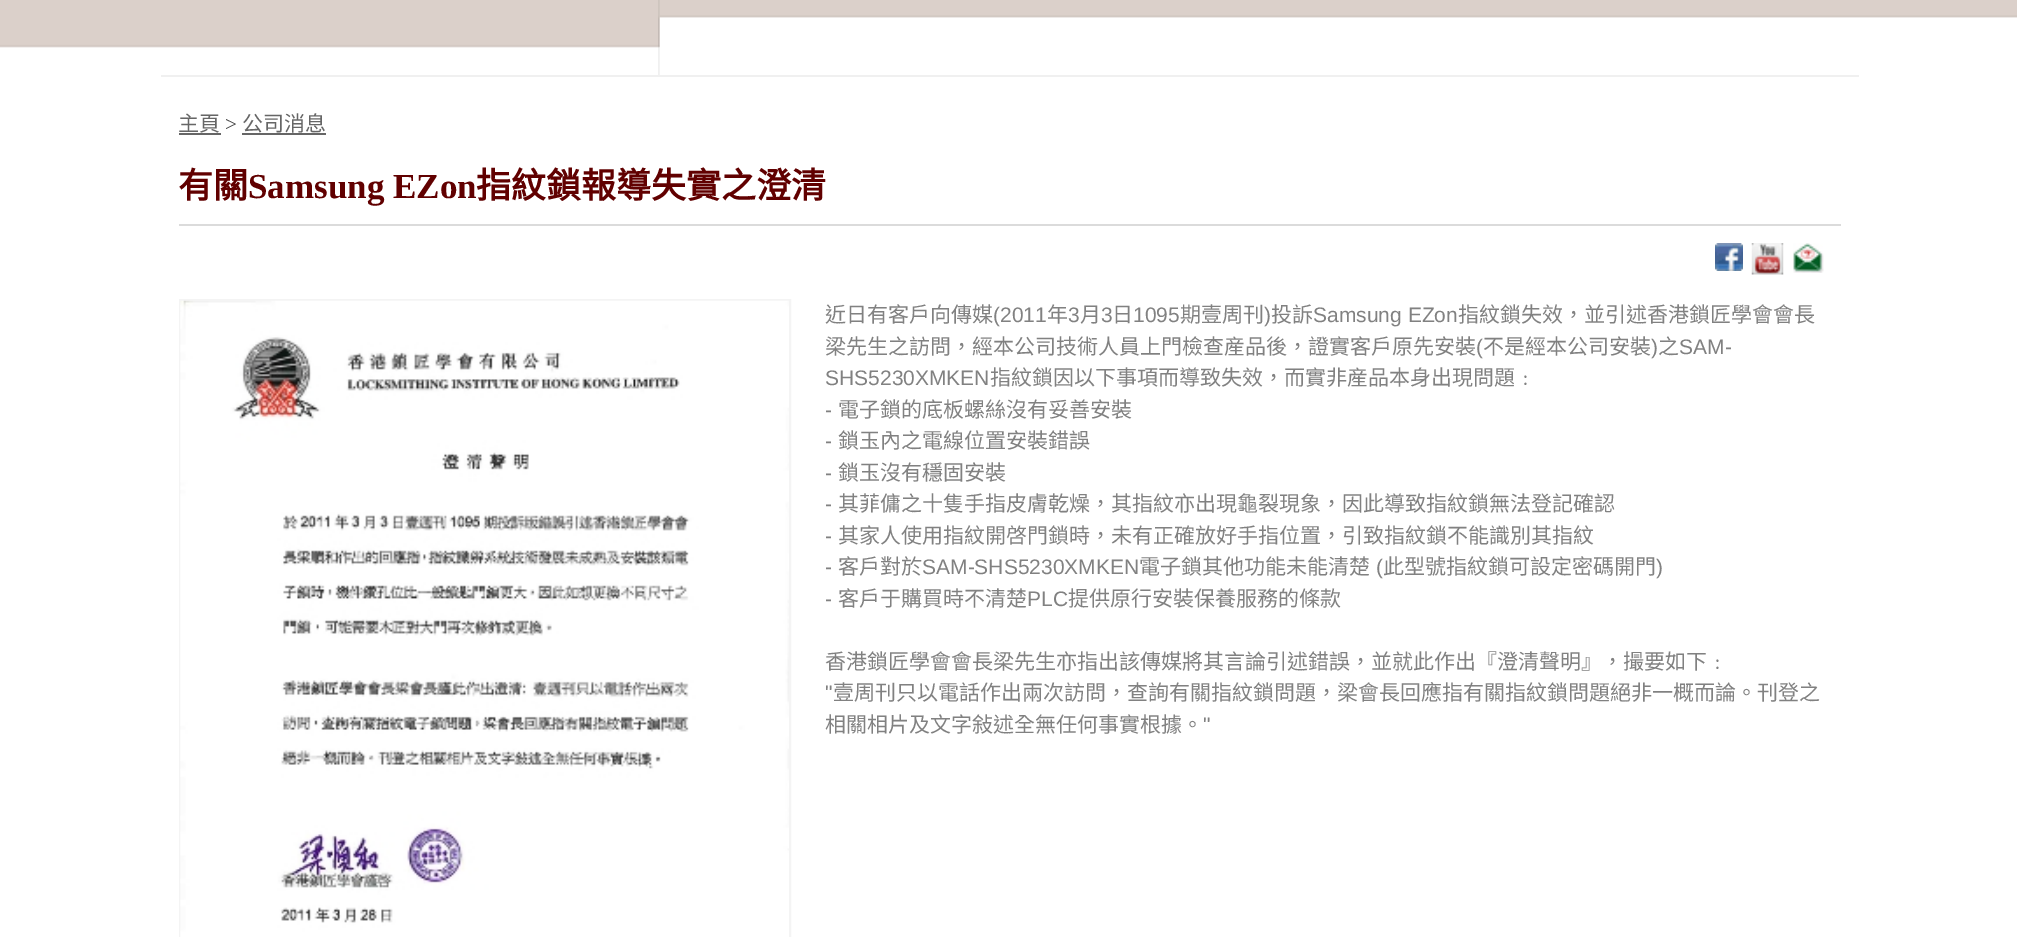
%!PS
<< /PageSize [2017 937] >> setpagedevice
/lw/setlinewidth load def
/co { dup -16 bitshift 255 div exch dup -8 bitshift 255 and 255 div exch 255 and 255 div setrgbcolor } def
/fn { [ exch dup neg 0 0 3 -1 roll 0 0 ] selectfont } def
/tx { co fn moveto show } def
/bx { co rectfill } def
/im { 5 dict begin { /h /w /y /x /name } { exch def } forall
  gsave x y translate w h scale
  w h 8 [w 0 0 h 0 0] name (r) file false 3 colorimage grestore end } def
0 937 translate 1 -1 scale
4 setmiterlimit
0 0 2017 937 16#FFFFFF bx
(media/1.raw) 0 0 2017 48 im
161 75 1698 2 16#F0F0F0 bx
(media/2.raw) 658 0 2 75 im
(media/3.raw) 659 15 1358 33 im
179 133 42 2 16#666666 bx
242 133 84 2 16#666666 bx
179 224 1662 2 16#DBDBDB bx
(media/4.raw) 1715 243 28 28 im
(media/5.raw) 1751 243 33 32 im
(media/6.raw) 1793 243 31 30 im
16#F4F4F4 co
2 lw
180 300 610 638 rectstroke
(media/7.raw) 180 300 609 637 im
(主頁) 178 131 /NotoSansCJKHK-Regular 21 16#666666 tx
(>) 225 131 /LiberationSerif-Regular 21 16#444444 tx
(公司消息) 242 131 /NotoSansCJKHK-Regular 21 16#666666 tx
(有關) 178 198 /NotoSansCJKHK-Bold 35 16#610000 tx
(Samsung EZon) 248 198 /LiberationSerif-Bold 35 16#610000 tx
(指紋鎖報導失實之澄清) 476 198 /NotoSansCJKHK-Bold 35 16#610000 tx
(近日有客戶向傳媒) 825 322 /NotoSansCJKHK-Regular 21 16#818181 tx
(\(2011) 993 322 /LiberationSans-Regular 21 16#818181 tx
(年) 1047 322 /NotoSansCJKHK-Regular 21 16#818181 tx
(3) 1068 322 /LiberationSans-Regular 21 16#818181 tx
(月) 1080 322 /NotoSansCJKHK-Regular 21 16#818181 tx
(3) 1101 322 /LiberationSans-Regular 21 16#818181 tx
(日) 1112 322 /NotoSansCJKHK-Regular 21 16#818181 tx
(1095) 1133 322 /LiberationSans-Regular 21 16#818181 tx
(期壹周刊) 1180 322 /NotoSansCJKHK-Regular 21 16#818181 tx
(\)) 1264 322 /LiberationSans-Regular 21 16#818181 tx
(投訴) 1271 322 /NotoSansCJKHK-Regular 21 16#818181 tx
(Samsung EZon) 1313 322 /LiberationSans-Regular 21 16#818181 tx
(指紋鎖失效，並引述香港鎖匠學會會長) 1458 322 /NotoSansCJKHK-Regular 21 16#818181 tx
(梁先生之訪問，經本公司技術人員上門檢查産品後，證實客戶原先安裝) 825 354 /NotoSansCJKHK-Regular 21 16#818181 tx
(\() 1476 354 /LiberationSans-Regular 21 16#818181 tx
(不是經本公司安裝) 1483 354 /NotoSansCJKHK-Regular 21 16#818181 tx
(\)) 1651 354 /LiberationSans-Regular 21 16#818181 tx
(之) 1658 354 /NotoSansCJKHK-Regular 21 16#818181 tx
(SAM-) 1679 354 /LiberationSans-Regular 21 16#818181 tx
(SHS5230XMKEN) 825 385 /LiberationSans-Regular 21 16#818181 tx
(指紋鎖因以下事項而導致失效，而實非産品本身出現問題﹕) 990 385 /NotoSansCJKHK-Regular 21 16#818181 tx
(-) 825 417 /LiberationSans-Regular 21 16#818181 tx
(電子鎖的底板螺絲沒有妥善安裝) 838 417 /NotoSansCJKHK-Regular 21 16#818181 tx
(-) 825 448 /LiberationSans-Regular 21 16#818181 tx
(鎖玉內之電線位置安裝錯誤) 838 448 /NotoSansCJKHK-Regular 21 16#818181 tx
(-) 825 480 /LiberationSans-Regular 21 16#818181 tx
(鎖玉沒有穩固安裝) 838 480 /NotoSansCJKHK-Regular 21 16#818181 tx
(-) 825 511 /LiberationSans-Regular 21 16#818181 tx
(其菲傭之十隻手指皮膚乾燥，其指紋亦出現龜裂現象，因此導致指紋鎖無法登記確認) 838 511 /NotoSansCJKHK-Regular 21 16#818181 tx
(-) 825 543 /LiberationSans-Regular 21 16#818181 tx
(其家人使用指紋開啓門鎖時，未有正確放好手指位置，引致指紋鎖不能識別其指紋) 838 543 /NotoSansCJKHK-Regular 21 16#818181 tx
(-) 825 574 /LiberationSans-Regular 21 16#818181 tx
(客戶對於) 838 574 /NotoSansCJKHK-Regular 21 16#818181 tx
(SAM-SHS5230XMKEN) 922 574 /LiberationSans-Regular 21 16#818181 tx
(電子鎖其他功能未能清楚) 1139 574 /NotoSansCJKHK-Regular 21 16#818181 tx
(\() 1376 574 /LiberationSans-Regular 21 16#818181 tx
(此型號指紋鎖可設定密碼開門) 1383 574 /NotoSansCJKHK-Regular 21 16#818181 tx
(\)) 1656 574 /LiberationSans-Regular 21 16#818181 tx
(-) 825 606 /LiberationSans-Regular 21 16#818181 tx
(客戶于購買時不清楚) 838 606 /NotoSansCJKHK-Regular 21 16#818181 tx
(PLC) 1027 606 /LiberationSans-Regular 21 16#818181 tx
(提供原行安裝保養服務的條款) 1068 606 /NotoSansCJKHK-Regular 21 16#818181 tx
(香港鎖匠學會會長梁先生亦指出該傳媒將其言論引述錯誤，並就此作出『澄清聲明』，撮要如下﹕) 825 669 /NotoSansCJKHK-Regular 21 16#818181 tx
(") 825 700 /LiberationSans-Regular 21 16#818181 tx
(壹周刊只以電話作出兩次訪問，查詢有關指紋鎖問題，梁會長回應指有關指紋鎖問題絕非一概而論。刊登之) 833 700 /NotoSansCJKHK-Regular 21 16#818181 tx
(相關相片及文字敍述全無任何事實根據。) 825 732 /NotoSansCJKHK-Regular 21 16#818181 tx
(") 1203 732 /LiberationSans-Regular 21 16#818181 tx
showpage
